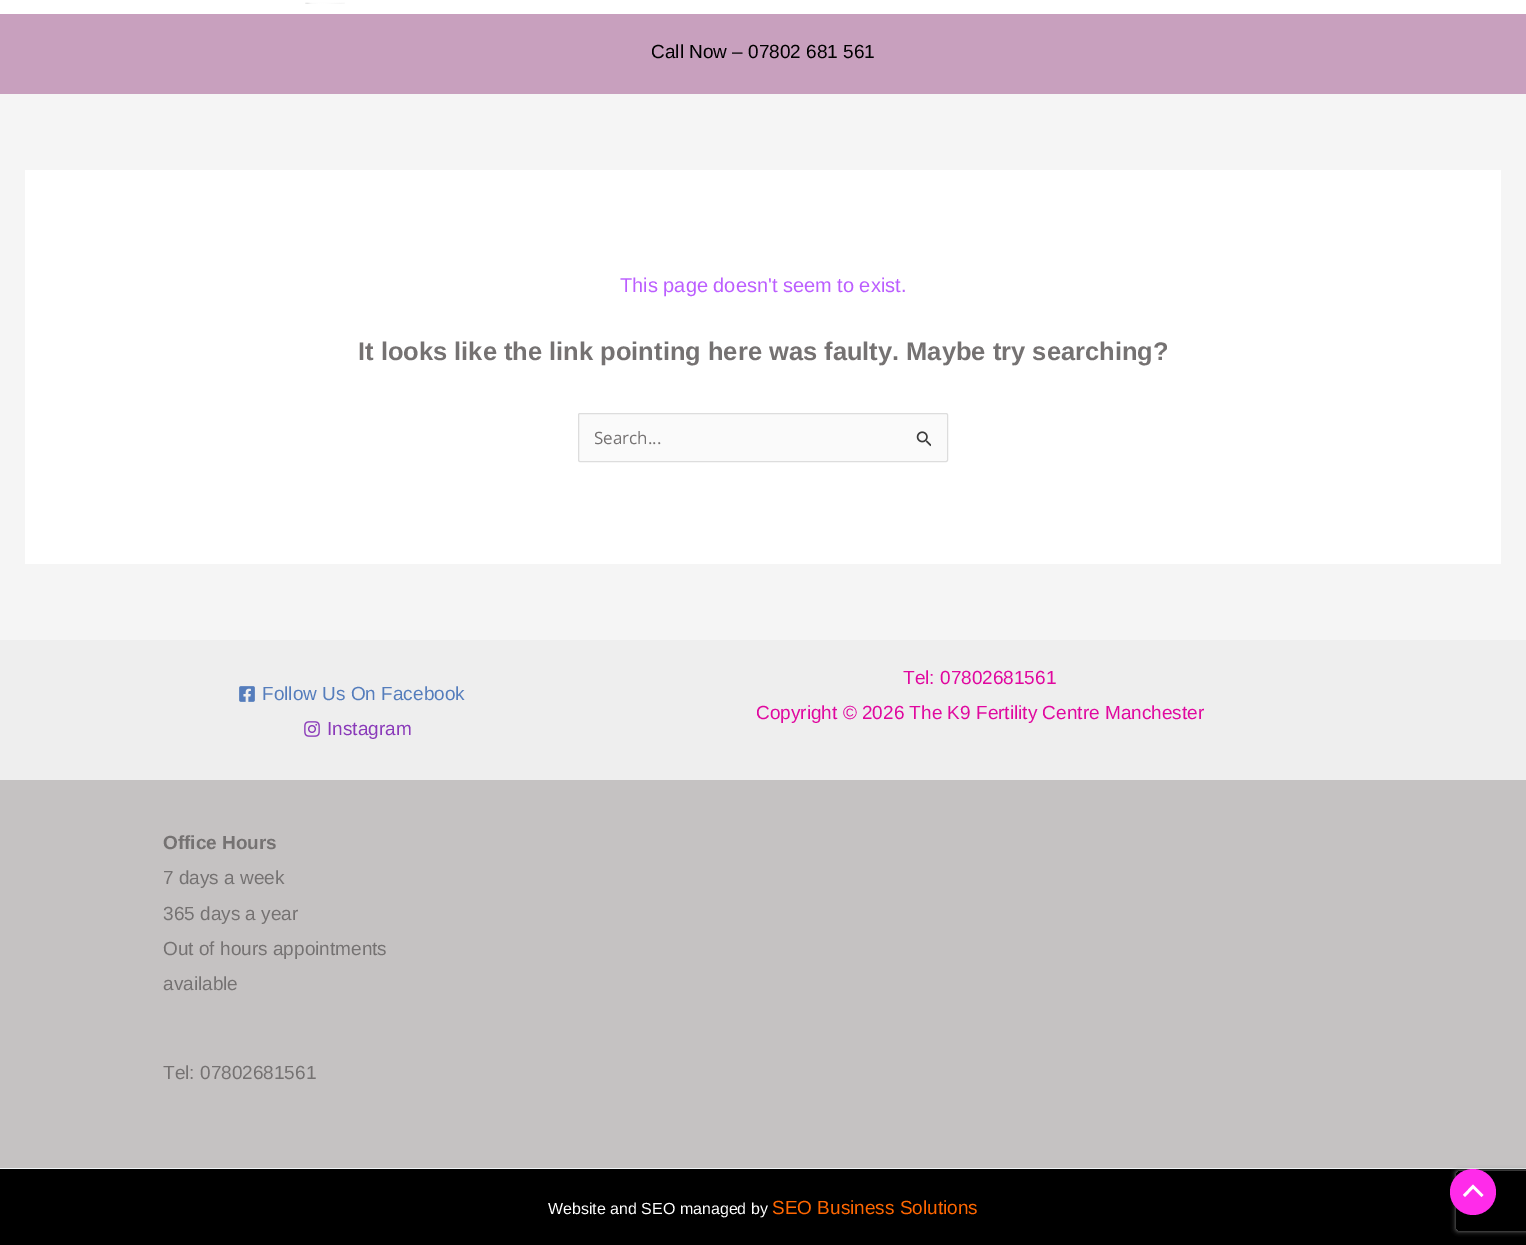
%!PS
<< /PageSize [1526 1245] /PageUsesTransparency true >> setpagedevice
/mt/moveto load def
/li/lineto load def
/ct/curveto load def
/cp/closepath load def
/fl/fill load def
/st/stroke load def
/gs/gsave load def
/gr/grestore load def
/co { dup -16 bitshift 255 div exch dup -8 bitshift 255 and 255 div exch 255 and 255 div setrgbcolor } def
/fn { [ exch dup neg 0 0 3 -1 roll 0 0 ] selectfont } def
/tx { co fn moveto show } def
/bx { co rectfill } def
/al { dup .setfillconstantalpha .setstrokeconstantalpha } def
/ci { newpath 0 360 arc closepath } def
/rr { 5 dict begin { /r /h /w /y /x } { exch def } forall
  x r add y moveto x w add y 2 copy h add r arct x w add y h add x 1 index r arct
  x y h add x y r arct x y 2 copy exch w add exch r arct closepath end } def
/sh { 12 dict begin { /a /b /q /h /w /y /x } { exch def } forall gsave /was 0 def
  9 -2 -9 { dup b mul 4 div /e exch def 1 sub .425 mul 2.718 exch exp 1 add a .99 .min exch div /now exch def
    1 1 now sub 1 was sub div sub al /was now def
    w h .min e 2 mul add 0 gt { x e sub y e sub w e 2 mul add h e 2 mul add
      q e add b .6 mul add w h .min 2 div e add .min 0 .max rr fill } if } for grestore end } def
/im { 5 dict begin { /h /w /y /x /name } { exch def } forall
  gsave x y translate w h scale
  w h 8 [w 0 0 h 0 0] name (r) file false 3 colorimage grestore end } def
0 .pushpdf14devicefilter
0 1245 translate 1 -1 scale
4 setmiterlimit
0 0 1526 1245 16#F5F5F5 bx
0 0 1526 14 16#FFFFFF bx
(media/1.raw) 305 2 40 2 im
0 14 1526 80 16#C8A0BE bx
25 170 1476 394 16#FFFFFF bx
16#FAFAFA co
578.5 413.5 369 48 1.5 rr gs fl gr
16#DDDDDD co
st
(media/2.raw) 916 431 15 16 im
0 1169 1526 76 16#000000 bx
0 640 1526 140 16#EEEEEE bx
(media/3.raw) 239 686 16 16 im
(media/4.raw) 304 721 16 16 im
0 780 1526 388 16#C5C2C2 bx
0 1168 1526 1 16#F2F5F7 bx
gs
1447 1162 mt 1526 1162 li 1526 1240 li 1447 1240 li cp 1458 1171 mt 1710 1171 li 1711 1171 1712 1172 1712 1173 ct 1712 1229 li 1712 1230 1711 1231 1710 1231 ct 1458 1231 li 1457 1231 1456 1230 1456 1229 ct 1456 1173 li 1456 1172 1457 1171 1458 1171 ct cp eoclip newpath
16#808080 co
1456 1171 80 60 2 2.5 1 sh
gr
16#FF2BEA co
1473 1192 23 ci fl
16#FFFFFF co
1483.5 1195 mt 1473 1184.5 li 1463 1195 li 1465 1197 li 1473 1188.5 li 1481.5 1197 li cp fl
(Call Now – 07802 681 561) 651 58 /LiberationSans-Regular 19 16#000000 tx
(This page doesn't seem to exist.) 620 292 /LiberationSans-Regular 20 16#BB5EFF tx
(It looks like the link pointing here was faulty. Maybe try searching?) 358 360 /LiberationSans-Bold 25.5 16#757272 tx
(Search...) 594 444 /OpenSans-Regular 17 16#757272 tx
(Follow Us On Facebook) 262 700 /LiberationSans-Regular 19 16#557DBC tx
(Instagram) 327 735 /LiberationSans-Regular 19 16#8A3AB9 tx
(Tel: 07802681561) 903 684 /LiberationSans-Regular 19 16#E0089F tx
(Copyright © 2026 The K9 Fertility Centre Manchester) 756 719 /LiberationSans-Regular 19 16#E0089F tx
(Office Hours) 163 849 /LiberationSans-Bold 19 16#757272 tx
(7 days a week) 163 884 /LiberationSans-Regular 19 16#757272 tx
(365 days a year) 163 920 /LiberationSans-Regular 19 16#757272 tx
(Out of hours appointments) 163 955 /LiberationSans-Regular 19 16#757272 tx
(available) 163 990 /LiberationSans-Regular 19 16#757272 tx
(Tel: 07802681561) 163 1079 /LiberationSans-Regular 19 16#757272 tx
(Website and SEO managed by) 548 1214 /LiberationSans-Regular 16 16#FFFFFF tx
(SEO Business Solutions) 772 1214 /LiberationSans-Regular 19 16#FF6600 tx
.poppdf14devicefilter showpage
